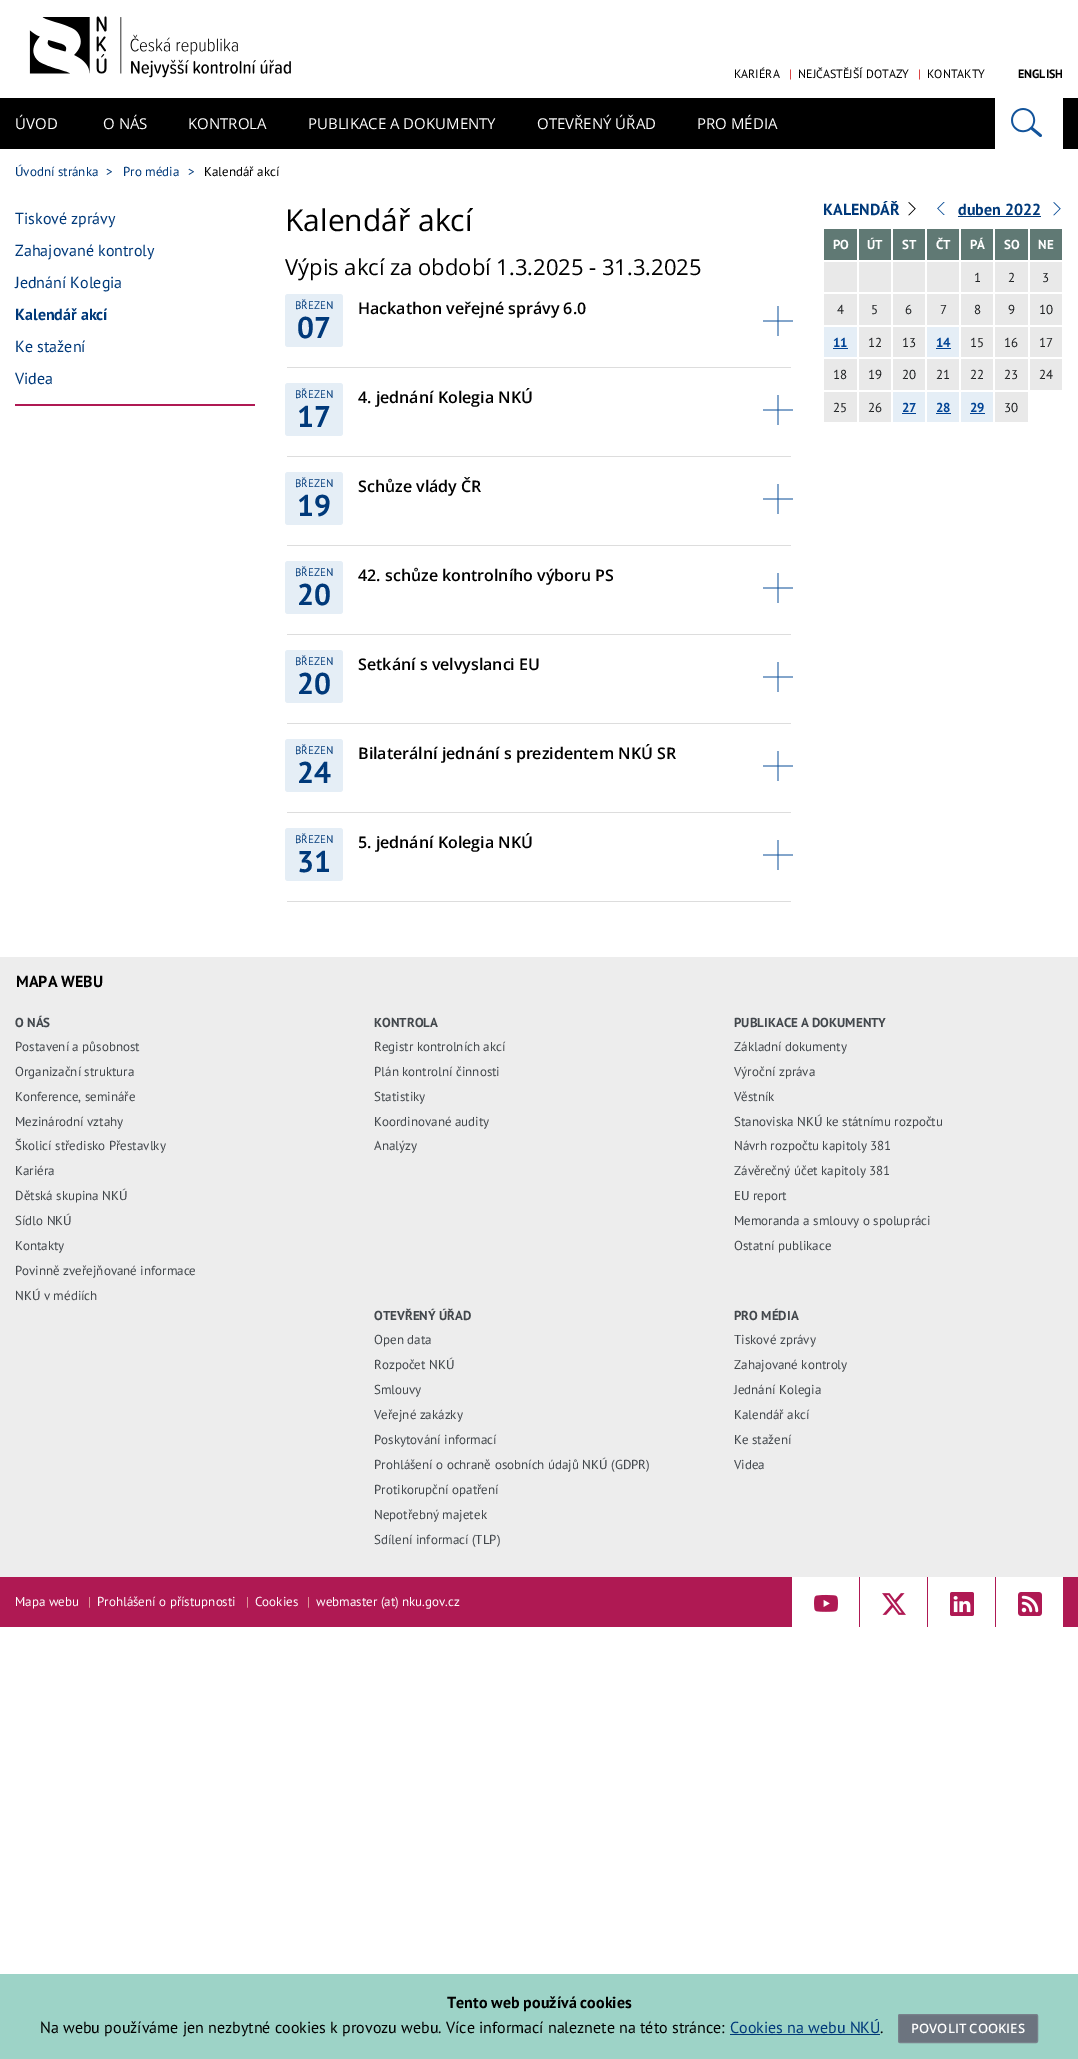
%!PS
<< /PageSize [1078 2059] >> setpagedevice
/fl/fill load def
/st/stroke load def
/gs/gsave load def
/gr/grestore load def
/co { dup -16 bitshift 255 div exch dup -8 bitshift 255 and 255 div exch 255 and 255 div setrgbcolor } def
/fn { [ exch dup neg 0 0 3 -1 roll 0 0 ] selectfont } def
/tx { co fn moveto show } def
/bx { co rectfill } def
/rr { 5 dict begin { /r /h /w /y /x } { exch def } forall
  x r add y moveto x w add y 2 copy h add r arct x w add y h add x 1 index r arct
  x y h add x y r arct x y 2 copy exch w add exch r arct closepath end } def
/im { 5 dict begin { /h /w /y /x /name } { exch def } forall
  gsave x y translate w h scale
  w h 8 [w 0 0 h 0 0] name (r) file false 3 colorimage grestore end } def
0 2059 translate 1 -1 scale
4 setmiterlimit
0 0 1078 2059 16#FFFFFF bx
(media/1.raw) 29 16 262 62 im
0 98 1078 51 16#000000 bx
995 98 68 51 16#FFFFFF bx
(media/2.raw) 1011 108 31 29 im
15 404 240 2 16#AF1953 bx
287 367 504 1 16#DDDDDD bx
16#E5EEF6 co
285 294 58 53 3 rr fl
(media/3.raw) 763 306 30 30 im
287 456 504 1 16#DDDDDD bx
16#E5EEF6 co
285 383 58 53 3 rr fl
(media/3.raw) 763 395 30 30 im
287 545 504 1 16#DDDDDD bx
16#E5EEF6 co
285 472 58 53 3 rr fl
(media/3.raw) 763 484 30 30 im
287 634 504 1 16#DDDDDD bx
16#E5EEF6 co
285 561 58 53 3 rr fl
(media/3.raw) 763 573 30 30 im
287 723 504 1 16#DDDDDD bx
16#E5EEF6 co
285 650 58 53 3 rr fl
(media/3.raw) 763 662 30 30 im
287 812 504 1 16#DDDDDD bx
16#E5EEF6 co
285 739 58 53 3 rr fl
(media/3.raw) 763 751 30 30 im
287 901 504 1 16#DDDDDD bx
16#E5EEF6 co
285 828 58 53 3 rr fl
(media/3.raw) 763 840 30 30 im
(media/4.raw) 908 202 8 14 im
(media/5.raw) 937 202 8 13 im
958 216 83 1 16#00397A bx
(media/6.raw) 1053 202 8 14 im
824 229 33 31 16#607974 bx
859 229 32 31 16#607974 bx
893 229 32 31 16#607974 bx
927 229 32 31 16#607974 bx
961 229 32 31 16#607974 bx
995 229 33 31 16#607974 bx
1030 229 32 31 16#607974 bx
824 262 33 30 16#E9E9E9 bx
859 262 32 30 16#E9E9E9 bx
893 262 32 30 16#E9E9E9 bx
927 262 32 30 16#E9E9E9 bx
961 262 32 30 16#E9E9E9 bx
995 262 33 30 16#E9E9E9 bx
1030 262 32 30 16#E9E9E9 bx
824 294 33 31 16#E9E9E9 bx
859 294 32 31 16#E9E9E9 bx
893 294 32 31 16#E9E9E9 bx
927 294 32 31 16#E9E9E9 bx
961 294 32 31 16#E9E9E9 bx
995 294 33 31 16#E9E9E9 bx
1030 294 32 31 16#E9E9E9 bx
824 327 33 30 16#E5EEF6 bx
833 348 15 1 16#004395 bx
859 327 32 30 16#E9E9E9 bx
893 327 32 30 16#E9E9E9 bx
927 327 32 30 16#E5EEF6 bx
936 348 15 1 16#004395 bx
961 327 32 30 16#E9E9E9 bx
995 327 33 30 16#E9E9E9 bx
1030 327 32 30 16#E9E9E9 bx
824 359 33 31 16#E9E9E9 bx
859 359 32 31 16#E9E9E9 bx
893 359 32 31 16#E9E9E9 bx
927 359 32 31 16#E9E9E9 bx
961 359 32 31 16#E9E9E9 bx
995 359 33 31 16#E9E9E9 bx
1030 359 32 31 16#E9E9E9 bx
824 392 33 30 16#E9E9E9 bx
859 392 32 30 16#E9E9E9 bx
893 392 32 30 16#E5EEF6 bx
902 413 14 1 16#004395 bx
927 392 32 30 16#E5EEF6 bx
936 413 15 1 16#004395 bx
961 392 32 30 16#E5EEF6 bx
970 413 15 1 16#004395 bx
995 392 33 30 16#E9E9E9 bx
0 957 1078 620 16#EDEDED bx
0 1577 1078 50 16#AF1953 bx
792 1577 67 50 16#FFFFFF bx
(media/7.raw) 814 1594 24 18 im
860 1577 67 50 16#FFFFFF bx
(media/8.raw) 882 1593 24 22 im
928 1577 67 50 16#FFFFFF bx
(media/9.raw) 950 1592 24 24 im
996 1577 67 50 16#FFFFFF bx
(media/10.raw) 1018 1592 24 24 im
0 1974 1078 85 16#9DD3C7 bx
730 2034 150 1 16#00397A bx
16#6C747F co
898.5 2014.5 139 28 1.5 rr gs fl gr
16#78818B co
st
(KARIÉRA) 734 78 /PTSans-Regular 12 16#000000 tx
(|) 789 78 /PTSans-Regular 12 16#CE0203 tx
(NEJČASTĚJŠÍ DOTAZY) 798 78 /PTSans-Regular 12 16#000000 tx
(|) 918 78 /PTSans-Regular 12 16#CE0203 tx
(KONTAKTY) 927 78 /PTSans-Regular 12 16#000000 tx
(ENGLISH) 1018 78 /PTSans-Bold 12 16#000000 tx
(ÚVOD) 15 129 /OpenSans-Regular 15 16#FFFFFF tx
(O NÁS) 103 129 /OpenSans-Regular 15 16#FFFFFF tx
(KONTROLA) 188 129 /OpenSans-Regular 15 16#FFFFFF tx
(PUBLIKACE A DOKUMENTY) 308 129 /OpenSans-Regular 15 16#FFFFFF tx
(OTEVŘENÝ ÚŘAD) 537 129 /OpenSans-Regular 15 16#FFFFFF tx
(PRO MÉDIA) 697 129 /OpenSans-Regular 15 16#FFFFFF tx
(Úvodní stránka) 15 176 /PTSans-Regular 13 16#00397A tx
(>) 106 176 /PTSans-Regular 13 16#00397A tx
(Pro média) 123 176 /PTSans-Regular 13 16#00397A tx
(>) 188 176 /PTSans-Regular 13 16#00397A tx
(Kalendář akcí) 204 176 /PTSans-Regular 13 16#000000 tx
(Tiskové zprávy) 15 224 /PTSans-Regular 16 16#00397A tx
(Zahajované kontroly) 15 256 /PTSans-Regular 16 16#00397A tx
(Jednání Kolegia) 15 288 /PTSans-Regular 16 16#00397A tx
(Kalendář akcí) 15 320 /PTSans-Bold 16 16#00397A tx
(Ke stažení) 15 352 /PTSans-Regular 16 16#00397A tx
(Videa) 15 384 /PTSans-Regular 16 16#00397A tx
(Kalendář akcí) 285 231 /OpenSans-Regular 30 16#000000 tx
(Výpis akcí za období 1.3.2025 - 31.3.2025) 285 275 /OpenSans-Regular 22 16#000000 tx
(BŘEZEN) 295 309 /PTSans-Regular 11 16#00397A tx
(07) 297 338 /PTSans-Bold 30 16#00397A tx
(Hackathon veřejné správy 6.0) 358 314 /OpenSans-SemiBold 16 16#000000 tx
(BŘEZEN) 295 398 /PTSans-Regular 11 16#00397A tx
(17) 297 427 /PTSans-Bold 30 16#00397A tx
(4. jednání Kolegia NKÚ) 358 403 /OpenSans-SemiBold 16 16#000000 tx
(BŘEZEN) 295 487 /PTSans-Regular 11 16#00397A tx
(19) 297 516 /PTSans-Bold 30 16#00397A tx
(Schůze vlády ČR) 358 492 /OpenSans-SemiBold 16 16#000000 tx
(BŘEZEN) 295 576 /PTSans-Regular 11 16#00397A tx
(20) 297 605 /PTSans-Bold 30 16#00397A tx
(42. schůze kontrolního výboru PS) 358 581 /OpenSans-SemiBold 16 16#000000 tx
(BŘEZEN) 295 665 /PTSans-Regular 11 16#00397A tx
(20) 297 694 /PTSans-Bold 30 16#00397A tx
(Setkání s velvyslanci EU) 358 670 /OpenSans-SemiBold 16 16#000000 tx
(BŘEZEN) 295 754 /PTSans-Regular 11 16#00397A tx
(24) 297 783 /PTSans-Bold 30 16#00397A tx
(Bilaterální jednání s prezidentem NKÚ SR) 358 759 /OpenSans-SemiBold 16 16#000000 tx
(BŘEZEN) 295 843 /PTSans-Regular 11 16#00397A tx
(31) 297 872 /PTSans-Bold 30 16#00397A tx
(5. jednání Kolegia NKÚ) 358 848 /OpenSans-SemiBold 16 16#000000 tx
(KALENDÁŘ) 823 215 /PTSans-Bold 16 16#00397A tx
(duben 2022) 958 215 /PTSans-Bold 16 16#00397A tx
(PO) 833 249 /PTSans-Bold 13 16#FFFFFF tx
(ÚT) 867 249 /PTSans-Bold 13 16#FFFFFF tx
(ST) 902 249 /PTSans-Bold 13 16#FFFFFF tx
(ČT) 936 249 /PTSans-Bold 13 16#FFFFFF tx
(PÁ) 970 249 /PTSans-Bold 13 16#FFFFFF tx
(SO) 1004 249 /PTSans-Bold 13 16#FFFFFF tx
(NE) 1038 249 /PTSans-Bold 13 16#FFFFFF tx
(1) 974 282 /PTSans-Regular 13 16#1F2123 tx
(2) 1008 282 /PTSans-Regular 13 16#1F2123 tx
(3) 1042 282 /PTSans-Regular 13 16#1F2123 tx
(4) 837 314 /PTSans-Regular 13 16#1F2123 tx
(5) 871 314 /PTSans-Regular 13 16#1F2123 tx
(6) 905 314 /PTSans-Regular 13 16#1F2123 tx
(7) 940 314 /PTSans-Regular 13 16#1F2123 tx
(8) 974 314 /PTSans-Regular 13 16#1F2123 tx
(9) 1008 314 /PTSans-Regular 13 16#1F2123 tx
(10) 1039 314 /PTSans-Regular 13 16#1F2123 tx
(11) 833 347 /PTSans-Bold 13 16#004395 tx
(12) 868 347 /PTSans-Regular 13 16#1F2123 tx
(13) 902 347 /PTSans-Regular 13 16#1F2123 tx
(14) 936 347 /PTSans-Bold 13 16#004395 tx
(15) 970 347 /PTSans-Regular 13 16#1F2123 tx
(16) 1004 347 /PTSans-Regular 13 16#1F2123 tx
(17) 1039 347 /PTSans-Regular 13 16#1F2123 tx
(18) 833 379 /PTSans-Regular 13 16#1F2123 tx
(19) 868 379 /PTSans-Regular 13 16#1F2123 tx
(20) 902 379 /PTSans-Regular 13 16#1F2123 tx
(21) 936 379 /PTSans-Regular 13 16#1F2123 tx
(22) 970 379 /PTSans-Regular 13 16#1F2123 tx
(23) 1004 379 /PTSans-Regular 13 16#1F2123 tx
(24) 1039 379 /PTSans-Regular 13 16#1F2123 tx
(25) 833 412 /PTSans-Regular 13 16#1F2123 tx
(26) 868 412 /PTSans-Regular 13 16#1F2123 tx
(27) 902 412 /PTSans-Bold 13 16#004395 tx
(28) 936 412 /PTSans-Bold 13 16#004395 tx
(29) 970 412 /PTSans-Bold 13 16#004395 tx
(30) 1004 412 /PTSans-Regular 13 16#1F2123 tx
(MAPA WEBU) 16 987 /PTSans-Bold 16 16#000000 tx
(O NÁS) 15 1027 /PTSans-Bold 13 16#42474C tx
(Postavení a působnost) 15 1051 /PTSans-Regular 13 16#42474C tx
(Organizační struktura) 15 1076 /PTSans-Regular 13 16#42474C tx
(Konference, semináře) 15 1101 /PTSans-Regular 13 16#42474C tx
(Mezinárodní vztahy) 15 1126 /PTSans-Regular 13 16#42474C tx
(Školicí středisko Přestavlky) 15 1150 /PTSans-Regular 13 16#42474C tx
(Kariéra) 15 1175 /PTSans-Regular 13 16#42474C tx
(Dětská skupina NKÚ) 15 1200 /PTSans-Regular 13 16#42474C tx
(Sídlo NKÚ) 15 1225 /PTSans-Regular 13 16#42474C tx
(Kontakty) 15 1250 /PTSans-Regular 13 16#42474C tx
(Povinně zveřejňované informace) 15 1275 /PTSans-Regular 13 16#42474C tx
(NKÚ v médiích) 15 1300 /PTSans-Regular 13 16#42474C tx
(KONTROLA) 374 1027 /PTSans-Bold 13 16#42474C tx
(Registr kontrolních akcí) 374 1051 /PTSans-Regular 13 16#42474C tx
(Plán kontrolní činnosti) 374 1076 /PTSans-Regular 13 16#42474C tx
(Statistiky) 374 1101 /PTSans-Regular 13 16#42474C tx
(Koordinované audity) 374 1126 /PTSans-Regular 13 16#42474C tx
(Analýzy) 374 1150 /PTSans-Regular 13 16#42474C tx
(PUBLIKACE A DOKUMENTY) 734 1027 /PTSans-Bold 13 16#42474C tx
(Základní dokumenty) 734 1051 /PTSans-Regular 13 16#42474C tx
(Výroční zpráva) 734 1076 /PTSans-Regular 13 16#42474C tx
(Věstník) 734 1101 /PTSans-Regular 13 16#42474C tx
(Stanoviska NKÚ ke státnímu rozpočtu) 734 1126 /PTSans-Regular 13 16#42474C tx
(Návrh rozpočtu kapitoly 381) 734 1150 /PTSans-Regular 13 16#42474C tx
(Závěrečný účet kapitoly 381) 734 1175 /PTSans-Regular 13 16#42474C tx
(EU report) 734 1200 /PTSans-Regular 13 16#42474C tx
(Memoranda a smlouvy o spolupráci) 734 1225 /PTSans-Regular 13 16#42474C tx
(Ostatní publikace) 734 1250 /PTSans-Regular 13 16#42474C tx
(OTEVŘENÝ ÚŘAD) 374 1320 /PTSans-Bold 13 16#42474C tx
(Open data) 374 1344 /PTSans-Regular 13 16#42474C tx
(Rozpočet NKÚ) 374 1369 /PTSans-Regular 13 16#42474C tx
(Smlouvy) 374 1394 /PTSans-Regular 13 16#42474C tx
(Veřejné zakázky) 374 1419 /PTSans-Regular 13 16#42474C tx
(Poskytování informací) 374 1444 /PTSans-Regular 13 16#42474C tx
(Prohlášení o ochraně osobních údajů NKÚ \(GDPR\)) 374 1469 /PTSans-Regular 13 16#42474C tx
(Protikorupční opatření) 374 1494 /PTSans-Regular 13 16#42474C tx
(Nepotřebný majetek) 374 1519 /PTSans-Regular 13 16#42474C tx
(Sdílení informací \(TLP\)) 374 1544 /PTSans-Regular 13 16#42474C tx
(PRO MÉDIA) 734 1320 /PTSans-Bold 13 16#42474C tx
(Tiskové zprávy) 734 1344 /PTSans-Regular 13 16#42474C tx
(Zahajované kontroly) 734 1369 /PTSans-Regular 13 16#42474C tx
(Jednání Kolegia) 734 1394 /PTSans-Regular 13 16#42474C tx
(Kalendář akcí) 734 1419 /PTSans-Regular 13 16#42474C tx
(Ke stažení) 734 1444 /PTSans-Regular 13 16#42474C tx
(Videa) 734 1469 /PTSans-Regular 13 16#42474C tx
(Mapa webu) 15 1606 /PTSans-Regular 13 16#FFFFFF tx
(|) 88 1606 /PTSans-Regular 13 16#DE9599 tx
(Prohlášení o přístupnosti) 97 1606 /PTSans-Regular 13 16#FFFFFF tx
(|) 246 1606 /PTSans-Regular 13 16#DE9599 tx
(Cookies) 255 1606 /PTSans-Regular 13 16#FFFFFF tx
(|) 307 1606 /PTSans-Regular 13 16#DE9599 tx
(webmaster \(at\) nku.gov.cz) 316 1606 /PTSans-Regular 13 16#FFFFFF tx
(Tento web používá cookies) 447 2008 /PTSans-Bold 16 16#000000 tx
(Na webu používáme jen nezbytné cookies k provozu webu. Více informací naleznete na této stránce:) 40 2033 /PTSans-Regular 16 16#000000 tx
(Cookies na webu NKÚ) 730 2033 /PTSans-Regular 16 16#00397A tx
(.) 880 2033 /PTSans-Regular 16 16#000000 tx
(POVOLIT COOKIES) 911 2033 /OpenSans-SemiBold 13 16#FFFFFF tx
showpage
